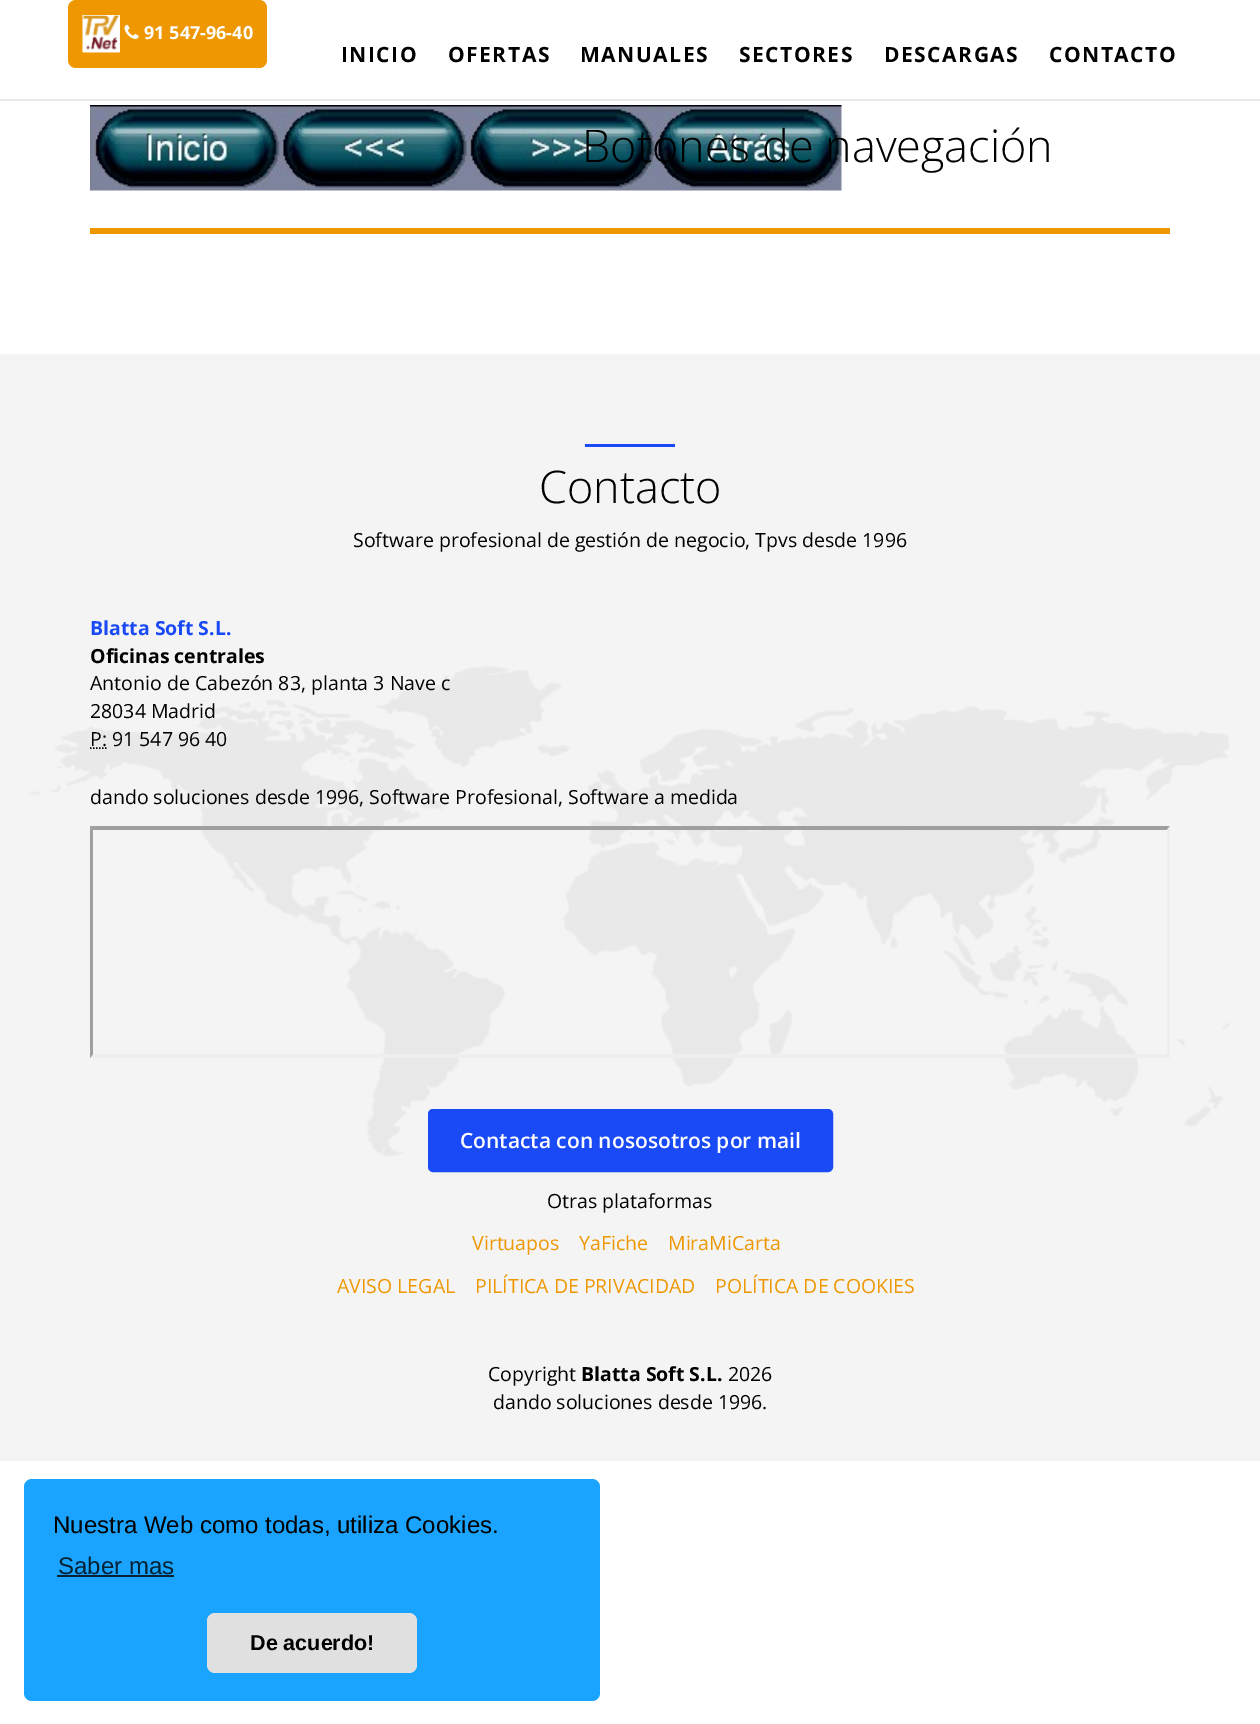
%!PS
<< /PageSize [1260 1724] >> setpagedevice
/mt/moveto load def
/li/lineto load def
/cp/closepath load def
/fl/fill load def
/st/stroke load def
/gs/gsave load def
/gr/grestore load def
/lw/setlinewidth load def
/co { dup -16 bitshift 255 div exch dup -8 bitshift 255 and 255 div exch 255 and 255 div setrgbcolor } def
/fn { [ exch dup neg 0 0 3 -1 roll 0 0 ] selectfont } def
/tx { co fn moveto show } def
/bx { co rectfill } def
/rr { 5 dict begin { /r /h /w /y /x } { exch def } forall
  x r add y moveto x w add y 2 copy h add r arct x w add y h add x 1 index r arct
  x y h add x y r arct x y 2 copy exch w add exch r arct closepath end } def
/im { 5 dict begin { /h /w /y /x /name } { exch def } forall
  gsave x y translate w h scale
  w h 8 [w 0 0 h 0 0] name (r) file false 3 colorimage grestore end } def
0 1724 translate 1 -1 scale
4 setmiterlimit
0 0 1260 1724 16#FFFFFF bx
0 99 1260 2 16#E7EAEC bx
16#EE9700 co
68 0 199 68 8 rr fl
(media/1.raw) 82 15 38 38 im
(media/2.raw) 124 24 15 15 im
(media/3.raw) 90 105 752 86 im
90 228 1080 6 16#EE9700 bx
0 354 1260 1107 16#F4F4F4 bx
(media/4.raw) 30 666 1200 491 im
585 444 90 3 16#1A4AF6 bx
16#000000 co
1.5 lw
[1.5 1.5] 0 setdash
90 748 mt 107 748 li st
16#9F9F9F co
90 826 mt 1170 826 li 1167 830 li 93 830 li cp fl
16#EEEEEE co
1170 826 mt 1170 1058 li 1167 1054 li 1167 830 li cp fl
1170 1058 mt 90 1058 li 93 1054 li 1167 1054 li cp fl
16#9F9F9F co
90 1058 mt 90 826 li 93 830 li 93 1054 li cp fl
16#1A4AF6 co
429 1110 403 61 4 rr gs fl gr
2 lw
[] 0 setdash
st
16#1AA3FF co
24 1479 576 222 8 rr fl
57 1575 117 2 16#052133 bx
16#E0E0E0 co
207 1613 210 60 8 rr fl
(91 547-96-40) 144 39 /OpenSans-Bold 18 16#FFFFFF tx
/OpenSans-Bold 21 fn
16#000000 co
341 62 mt 1.5 0 (INICIO) ashow
448 62 mt 1.5 0 (OFERTAS) ashow
580 62 mt 1.5 0 (MANUALES) ashow
739 62 mt 1.5 0 (SECTORES) ashow
884 62 mt 1.5 0 (DESCARGAS) ashow
1049 62 mt 1.5 0 (CONTACTO) ashow
(Botones de navegación) 582 162 /OpenSans-Light 45 16#000000 tx
(Contacto) 539 503 /OpenSans-Light 45 16#000000 tx
(Software profesional de gestión de negocio, Tpvs desde 1996) 353 547 /OpenSans-Regular 19.5 16#000000 tx
(Blatta Soft S.L.) 90 635 /OpenSans-Bold 19.5 16#1A4AF6 tx
(Oficinas centrales) 90 663 /OpenSans-Bold 19.5 16#000000 tx
(Antonio de Cabezón 83, planta 3 Nave c) 90 690 /OpenSans-Regular 19.5 16#000000 tx
(28034 Madrid) 90 718 /OpenSans-Regular 19.5 16#000000 tx
(P: 91 547 96 40) 90 746 /OpenSans-Regular 19.5 16#000000 tx
(dando soluciones desde 1996, Software Profesional, Software a medida) 90 804 /OpenSans-Regular 19.5 16#000000 tx
(Contacta con nososotros por mail) 460 1148 /OpenSans-SemiBold 21 16#FFFFFF tx
(Otras plataformas) 547 1208 /OpenSans-Regular 19.5 16#000000 tx
(Virtuapos) 472 1250 /OpenSans-Regular 19.5 16#EE9700 tx
(YaFiche) 579 1250 /OpenSans-Regular 19.5 16#EE9700 tx
(MiraMiCarta) 668 1250 /OpenSans-Regular 19.5 16#EE9700 tx
(AVISO LEGAL) 337 1293 /OpenSans-Regular 19.5 16#EE9700 tx
(PILÍTICA DE PRIVACIDAD) 475 1293 /OpenSans-Regular 19.5 16#EE9700 tx
(POLÍTICA DE COOKIES) 715 1293 /OpenSans-Regular 19.5 16#EE9700 tx
(Copyright) 488 1381 /OpenSans-Regular 19.5 16#000000 tx
(Blatta Soft S.L.) 581 1381 /OpenSans-Bold 19.5 16#000000 tx
(2026) 728 1381 /OpenSans-Regular 19.5 16#000000 tx
(dando soluciones desde 1996.) 493 1409 /OpenSans-Regular 19.5 16#000000 tx
(Nuestra Web como todas, utiliza Cookies.) 53 1533 /LiberationSans-Regular 24 16#000000 tx
(Saber mas) 58 1574 /LiberationSans-Regular 24 16#052133 tx
(De acuerdo!) 250 1650 /LiberationSans-Bold 21.5 16#000000 tx
showpage
